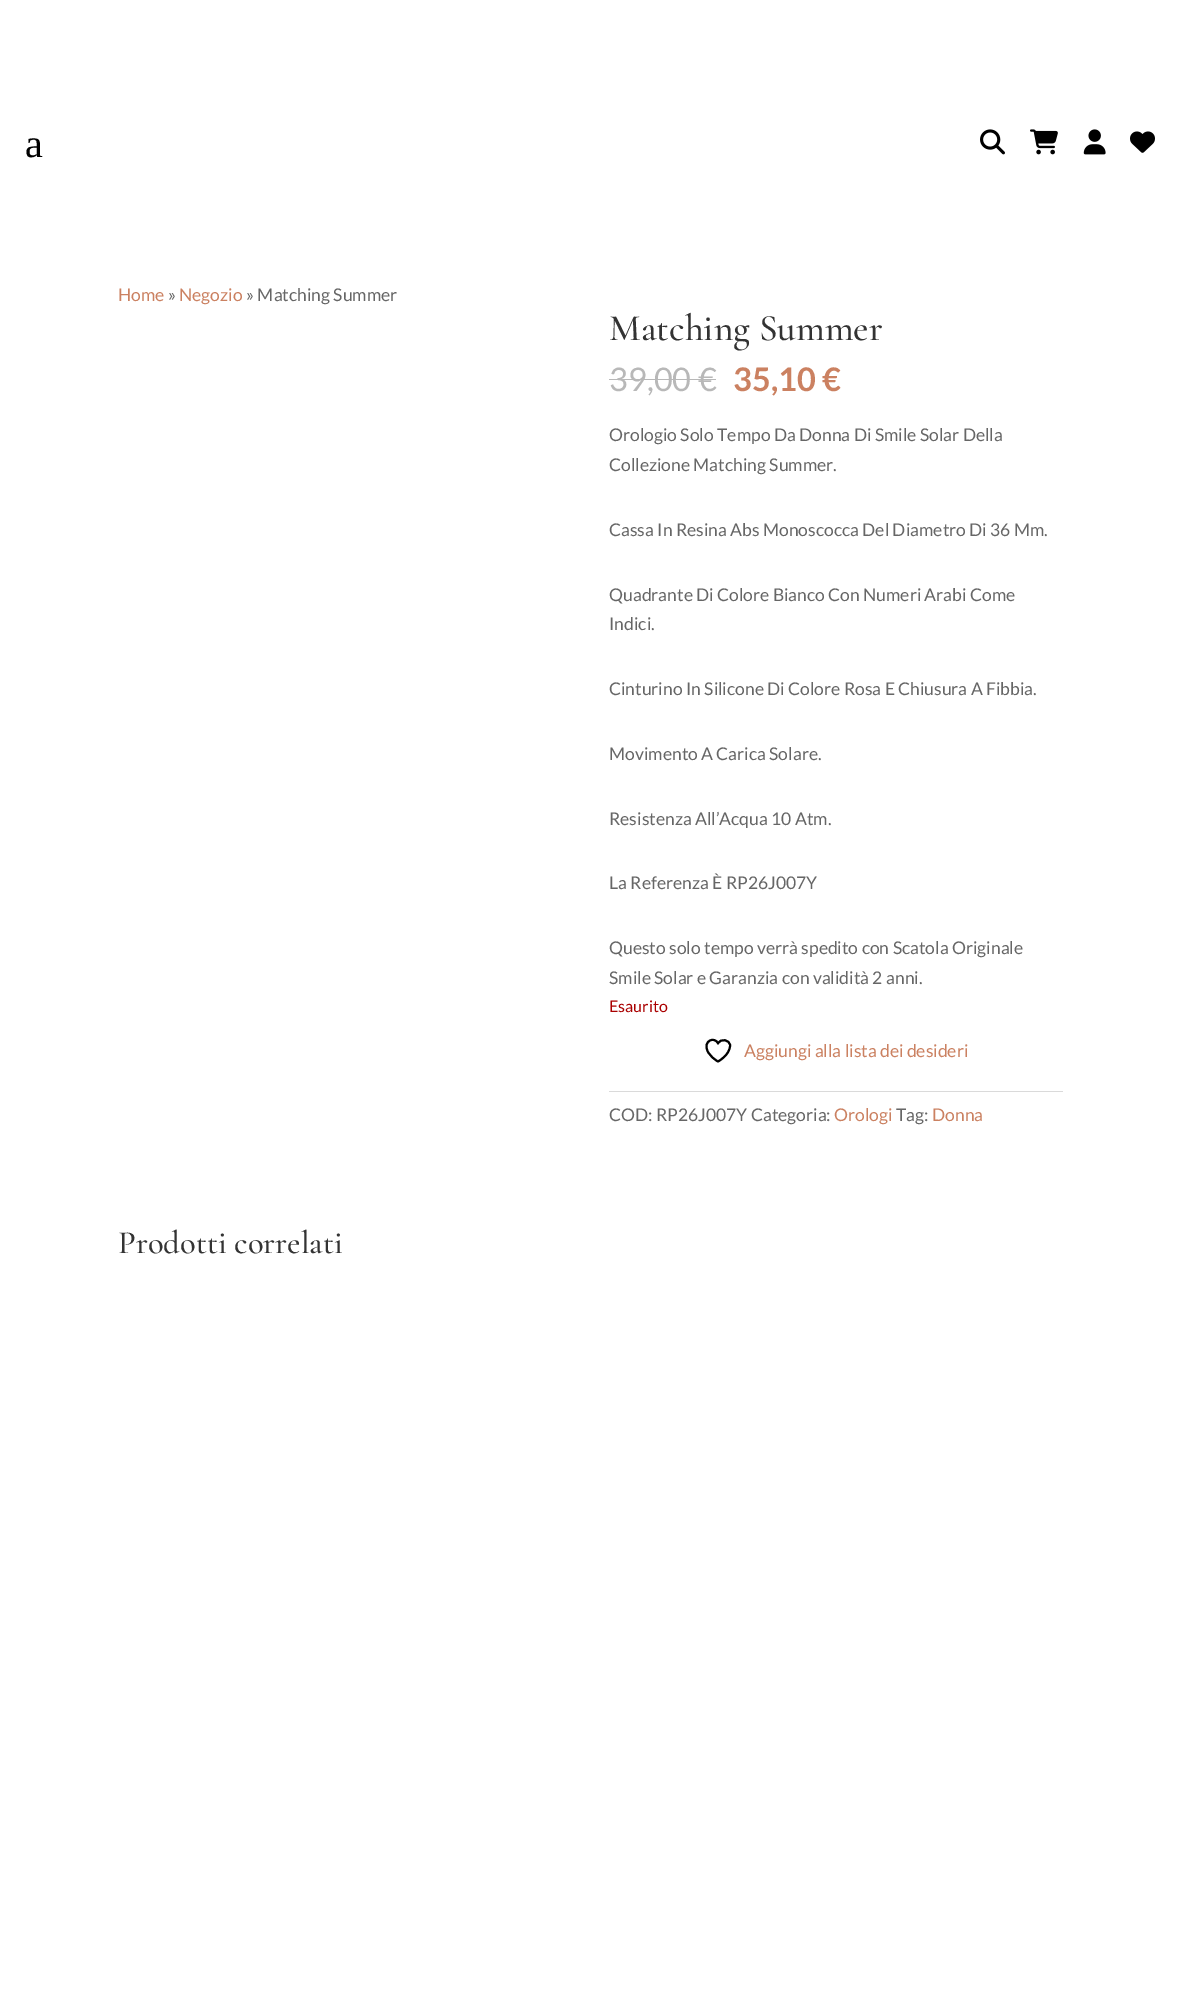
%!PS
<< /PageSize [1180 2004] >> setpagedevice
/mt/moveto load def
/ct/curveto load def
/cp/closepath load def
/st/stroke load def
/lw/setlinewidth load def
/co { dup -16 bitshift 255 div exch dup -8 bitshift 255 and 255 div exch 255 and 255 div setrgbcolor } def
/fn { [ exch dup neg 0 0 3 -1 roll 0 0 ] selectfont } def
/tx { co fn moveto show } def
/bx { co rectfill } def
/im { 5 dict begin { /h /w /y /x /name } { exch def } forall
  gsave x y translate w h scale
  w h 8 [w 0 0 h 0 0] name (r) file false 3 colorimage grestore end } def
0 2004 translate 1 -1 scale
4 setmiterlimit
0 0 1180 2004 16#FFFFFF bx
(media/1.raw) 980 129 25 26 im
(media/2.raw) 1030 129 28 26 im
(media/3.raw) 1083 129 23 26 im
(media/4.raw) 1130 131 25 22 im
609 379 107 1 16#B8B8B8 bx
16#000000 co
2 lw
1 setlinecap
1 setlinejoin
730 1045.5 mt 730 1039.5 720.5 1038 718 1043.5 ct 715 1036 702 1040.5 708 1052 ct 710.5 1056 714 1059.5 718 1061.5 ct 718 1061.5 730 1055 730 1045.5 ct cp st
609 1091 454 1 16#DADADA bx
(a) 25 157 /LiberationSerif-Regular 40 16#000000 tx
(Home) 118 301 /Lato-Regular 17.5 16#CB8161 tx
(») 168 301 /Lato-Regular 17.5 16#666666 tx
(Negozio) 179 301 /Lato-Regular 17.5 16#CB8161 tx
(» Matching Summer) 246 301 /Lato-Regular 17.5 16#666666 tx
(Matching Summer) 609 340 /CormorantGaramond-Light 37.5 16#333333 tx
(39,00 €) 609 391 /Lato-Regular 32.5 16#B8B8B8 tx
(35,10 €) 733 391 /Lato-Bold 32.5 16#CB8161 tx
(Orologio Solo Tempo Da Donna Di Smile Solar Della) 609 441 /Lato-Regular 17.5 16#666666 tx
(Collezione Matching Summer.) 609 471 /Lato-Regular 17.5 16#666666 tx
(Cassa In Resina Abs Monoscocca Del Diametro Di 36 Mm.) 609 536 /Lato-Regular 17.5 16#666666 tx
(Quadrante Di Colore Bianco Con Numeri Arabi Come) 609 601 /Lato-Regular 17.5 16#666666 tx
(Indici.) 609 630 /Lato-Regular 17.5 16#666666 tx
(Cinturino In Silicone Di Colore Rosa E Chiusura A Fibbia.) 609 695 /Lato-Regular 17.5 16#666666 tx
(Movimento A Carica Solare.) 609 760 /Lato-Regular 17.5 16#666666 tx
(Resistenza All’Acqua 10 Atm.) 609 825 /Lato-Regular 17.5 16#666666 tx
(La Referenza È RP26J007Y) 609 889 /Lato-Regular 17.5 16#666666 tx
(Questo solo tempo verrà spedito con Scatola Originale) 609 954 /Lato-Regular 17.5 16#666666 tx
(Smile Solar e Garanzia con validità 2 anni.) 609 984 /Lato-Regular 17.5 16#666666 tx
(Esaurito) 609 1012 /Lato-Regular 16 16#AA0000 tx
(Aggiungi alla lista dei desideri) 744 1057 /Lato-Regular 17.5 16#CB8161 tx
(COD: RP26J007Y Categoria:) 609 1121 /Lato-Regular 17.5 16#666666 tx
(Orologi) 834 1121 /Lato-Regular 17.5 16#CB8161 tx
(Tag:) 896 1121 /Lato-Regular 17.5 16#666666 tx
(Donna) 932 1121 /Lato-Regular 17.5 16#CB8161 tx
(Prodotti correlati) 118 1253 /CormorantGaramond-Light 32.5 16#333333 tx
showpage
